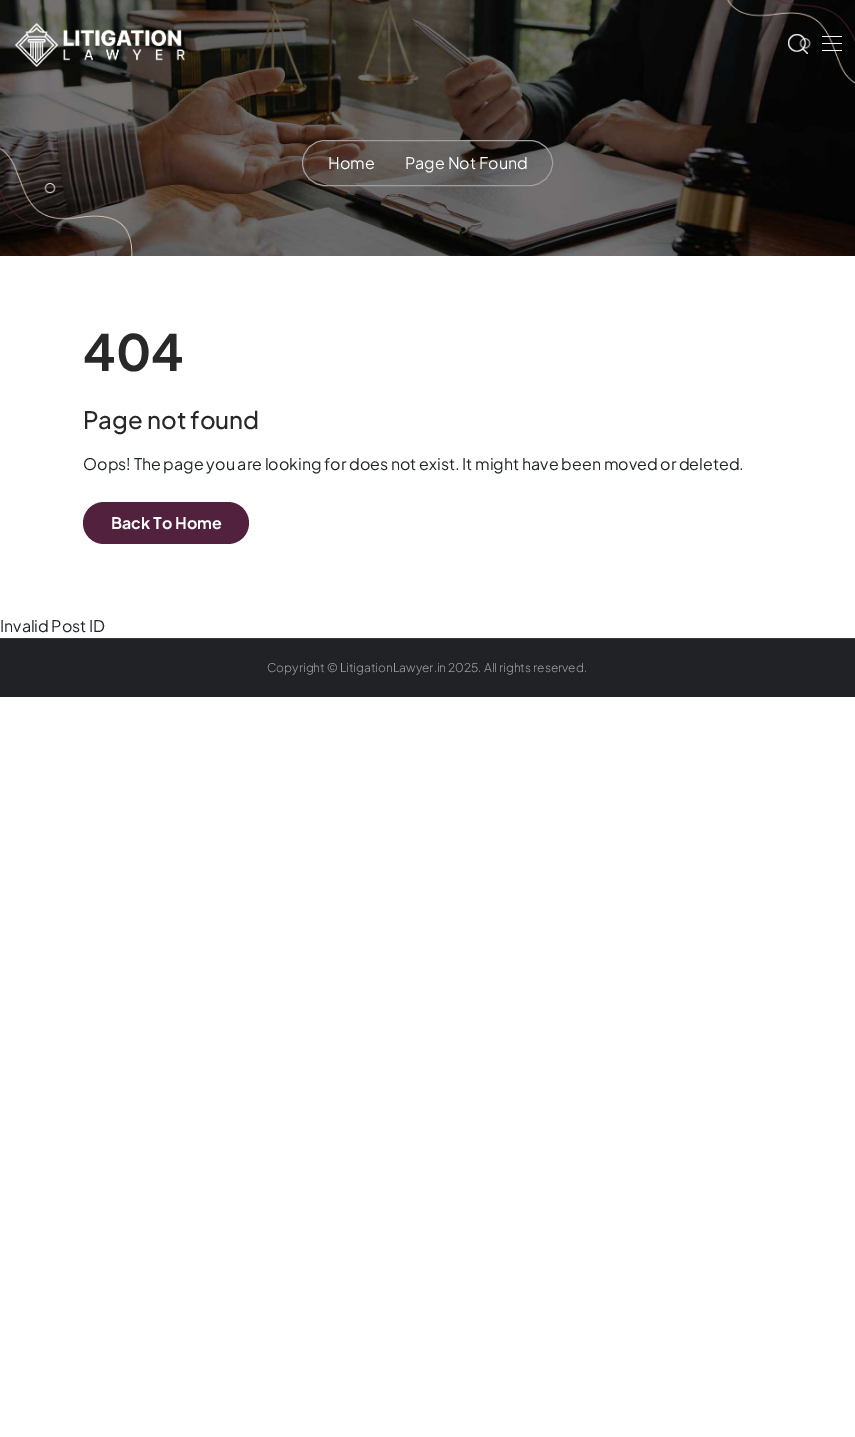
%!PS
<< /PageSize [855 1437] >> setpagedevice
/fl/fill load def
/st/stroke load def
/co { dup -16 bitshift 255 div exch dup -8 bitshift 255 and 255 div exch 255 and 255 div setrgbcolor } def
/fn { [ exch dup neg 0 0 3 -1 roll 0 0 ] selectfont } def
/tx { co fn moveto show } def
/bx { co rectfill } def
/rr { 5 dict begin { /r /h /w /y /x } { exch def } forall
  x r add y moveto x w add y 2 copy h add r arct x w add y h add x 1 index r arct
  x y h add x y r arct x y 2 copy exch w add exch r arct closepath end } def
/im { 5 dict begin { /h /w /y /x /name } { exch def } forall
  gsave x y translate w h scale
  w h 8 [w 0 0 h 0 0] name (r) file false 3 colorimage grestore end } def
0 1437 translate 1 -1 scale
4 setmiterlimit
0 0 855 1437 16#FFFFFF bx
(media/3.raw) 0 0 855 256 im
(media/1.raw) 15 23 170 44 im
822 43 20 1 16#FFFFFF bx
822 36 20 1 16#FFFFFF bx
822 50 20 1 16#FFFFFF bx
(media/2.raw) 788 34 20 20 im
16#A1A0A0 co
302.5 140.5 250 45 22.5 rr st
16#51213D co
83 502 166 42 21 rr fl
0 639 855 58 16#202226 bx
0 638 855 1 16#37393C bx
(Home) 328 169 /PlusJakartaSans-Regular 16 16#FFFFFF tx
(Page Not Found) 405 169 /PlusJakartaSans-Regular 16 16#FFFFFF tx
(404) 83 371 /PlusJakartaSans-Bold 50 16#282828 tx
(Page not found) 83 429 /PlusJakartaSans-Medium 24 16#282828 tx
(Oops! The page you are looking for does not exist. It might have been moved or deleted.) 83 470 /PlusJakartaSans-Regular 16 16#212529 tx
(Back To Home) 111 529 /PlusJakartaSans-Bold 16 16#FFFFFF tx
(Invalid Post ID) 0 632 /PlusJakartaSans-Regular 16 16#212529 tx
(Copyright © LitigationLawyer.in 2025. All rights reserved.) 267 672 /PlusJakartaSans-Light 12 16#A0A09F tx
showpage
